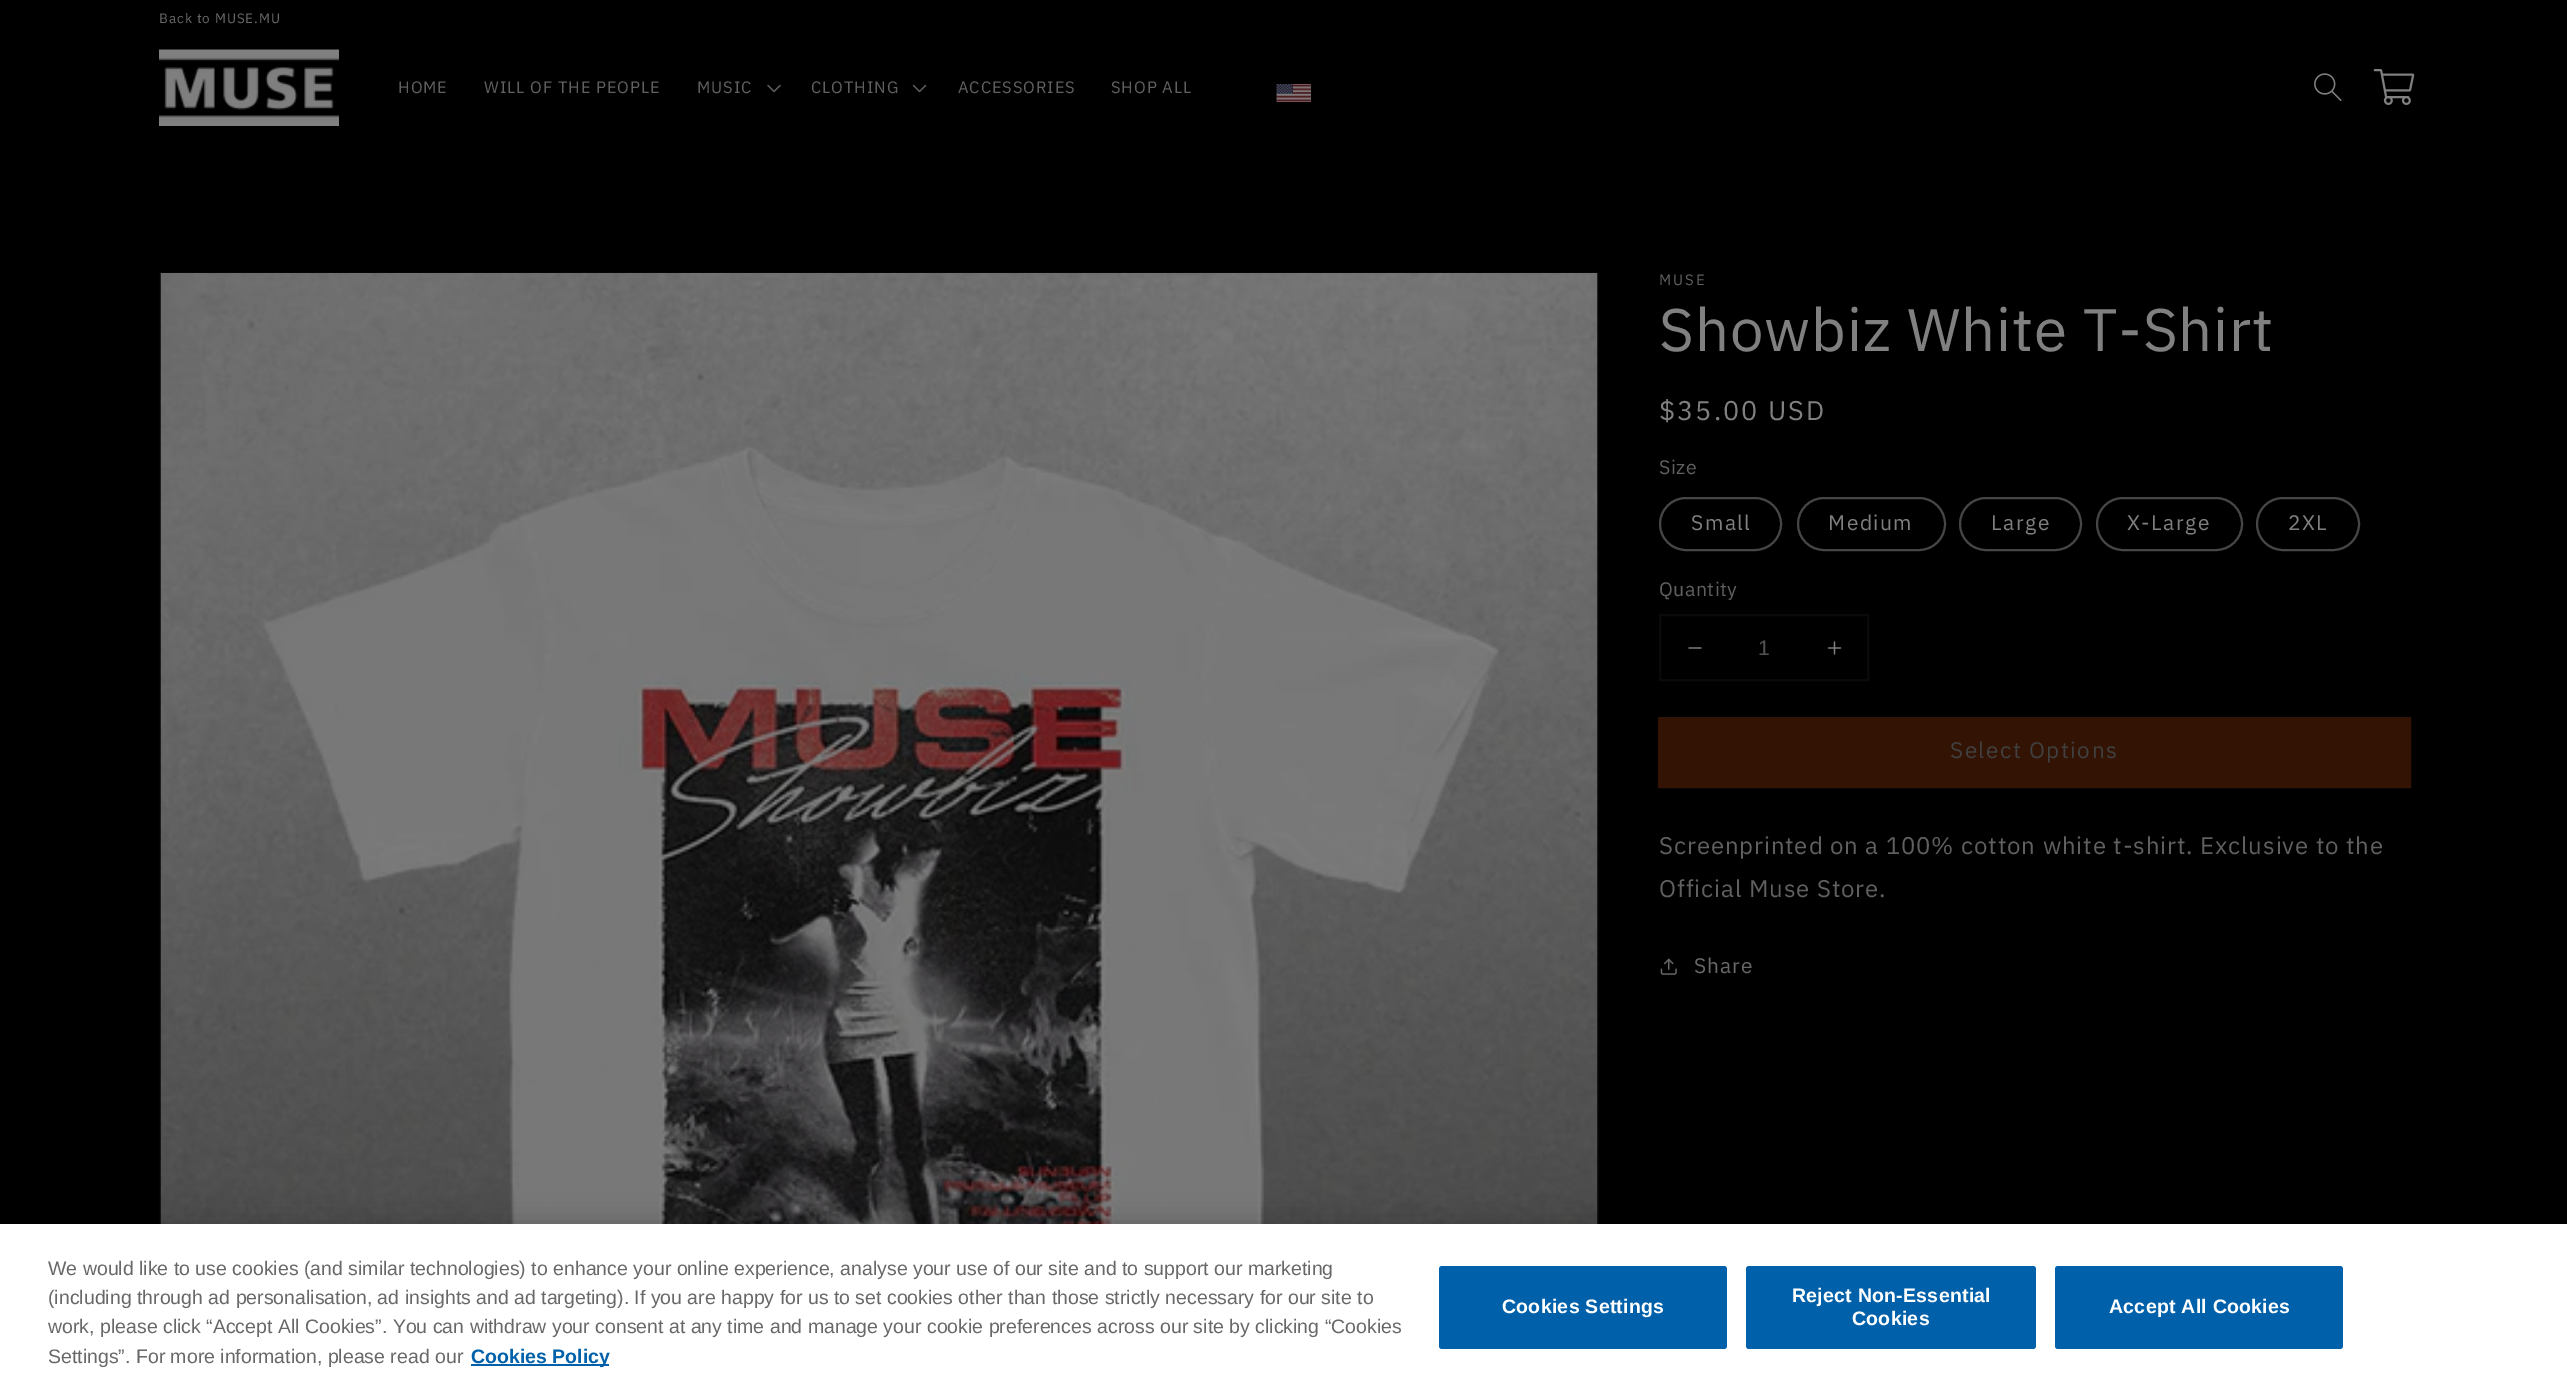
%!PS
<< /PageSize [2567 1386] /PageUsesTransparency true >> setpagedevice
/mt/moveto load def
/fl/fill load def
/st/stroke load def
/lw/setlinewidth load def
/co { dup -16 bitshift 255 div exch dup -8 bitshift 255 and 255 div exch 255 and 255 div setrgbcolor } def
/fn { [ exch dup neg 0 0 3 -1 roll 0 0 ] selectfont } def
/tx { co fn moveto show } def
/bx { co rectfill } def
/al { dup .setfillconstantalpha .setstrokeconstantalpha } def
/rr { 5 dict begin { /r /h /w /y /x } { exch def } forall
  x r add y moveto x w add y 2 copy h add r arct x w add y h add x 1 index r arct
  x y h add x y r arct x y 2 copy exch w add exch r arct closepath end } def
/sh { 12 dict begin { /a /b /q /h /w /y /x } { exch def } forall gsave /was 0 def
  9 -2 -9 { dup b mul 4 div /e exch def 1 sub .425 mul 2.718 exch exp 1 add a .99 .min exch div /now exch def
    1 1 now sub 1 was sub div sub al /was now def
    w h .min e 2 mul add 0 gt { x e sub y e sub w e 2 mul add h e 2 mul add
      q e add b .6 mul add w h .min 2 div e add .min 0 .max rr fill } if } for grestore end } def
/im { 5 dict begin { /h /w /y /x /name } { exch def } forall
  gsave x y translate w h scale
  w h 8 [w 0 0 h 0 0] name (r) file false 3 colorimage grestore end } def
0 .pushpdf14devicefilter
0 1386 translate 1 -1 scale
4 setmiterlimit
0 0 2567 1386 16#000000 bx
(media/1.raw) 159 49 180 77 im
(media/2.raw) 767 84 14 9 im
(media/3.raw) 912 84 15 9 im
(media/4.raw) 1276 84 35 18 im
(media/5.raw) 2314 73 28 28 im
(media/6.raw) 2373 69 42 36 im
16#050505 co
2 lw
160 273 1438 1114 rectstroke
(media/7.raw) 160 273 1438 951 im
16#464646 co
1660 498 121 52 26 rr st
1798 498 147 52 26 rr st
1960 498 121 52 26 rr st
2097 498 145 52 26 rr st
2257 498 102 52 26 rr st
16#0A0A0A co
1660 615 208 65 rectstroke
(media/8.raw) 1688 647 14 2 im
(media/9.raw) 1827 641 15 14 im
16#321304 co
1659 718 751 69 rectstroke
1660 719 749 67 16#321304 bx
(media/10.raw) 1660 958 17 17 im
16#000000 co
0 1224 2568 162 0 13.5 .2 sh
0 1224 2567 162 16#FFFFFF bx
471 1364 138 2 16#0061AA bx
1439 1266 288 83 3 rr fl
1746 1266 290 83 3 rr fl
2055 1266 288 83 3 rr fl
/IBMPlexSans-Regular 13.5 fn
16#686868 co
159 23 mt .9 0 (Back to MUSE.MU) ashow
/IBMPlexSans-Regular 16.5 fn
16#606060 co
398 93 mt .9 0 (HOME) ashow
484 93 mt .9 0 (WILL OF THE PEOPLE) ashow
697 93 mt .9 0 (MUSIC) ashow
811 93 mt .9 0 (CLOTHING) ashow
958 93 mt .9 0 (ACCESSORIES) ashow
1111 93 mt .9 0 (SHOP ALL) ashow
/IBMPlexSans-Regular 15 fn
1659 285 mt 2 0 (MUSE) ashow
/IBMPlexSans-Regular 60 fn
16#808080 co
1659 351 mt .9 0 (Showbiz White T-Shirt) ashow
/IBMPlexSans-Regular 27 fn
1659 420 mt 2 0 ($35.00 USD) ashow
/IBMPlexSans-Regular 19.5 fn
16#606060 co
1659 474 mt .5 0 (Size) ashow
/IBMPlexSans-Regular 21 fn
16#808080 co
1691 530 mt 1.5 0 (Small) ashow
1828 530 mt 1.5 0 (Medium) ashow
1991 530 mt 1.5 0 (Large) ashow
2127 530 mt 1.5 0 (X-Large) ashow
2288 530 mt 1.5 0 (2XL) ashow
/IBMPlexSans-Regular 19.5 fn
16#606060 co
1659 596 mt .5 0 (Quantity) ashow
(1) 1758 655 /LiberationSans-Regular 21 16#525252 tx
/IBMPlexSans-Regular 22.5 fn
16#404040 co
1950 758 mt 1.5 0 (Select Options) ashow
/IBMPlexSans-Regular 24 fn
16#606060 co
1659 854 mt .9 0 (Screenprinted on a 100% cotton white t-shirt. Exclusive to the) ashow
1659 897 mt .9 0 (Official Muse Store.) ashow
/IBMPlexSans-Regular 21 fn
16#686868 co
1694 973 mt .9 0 (Share) ashow
(We would like to use cookies \(and similar technologies\) to enhance your online experience, analyse your use of our site and to support our marketing) 48 1275 /LiberationSans-Regular 19.5 16#686868 tx
(\(including through ad personalisation, ad insights and ad targeting\). If you are happy for us to set cookies other than those strictly necessary for our site to) 48 1304 /LiberationSans-Regular 19.5 16#686868 tx
(work, please click “Accept All Cookies”. You can withdraw your consent at any time and manage your cookie preferences across our site by clicking “Cookies) 48 1333 /LiberationSans-Regular 19.5 16#686868 tx
(Settings”. For more information, please read our) 48 1363 /LiberationSans-Regular 19.5 16#686868 tx
(Cookies Policy) 471 1363 /LiberationSans-Bold 19.5 16#0061AA tx
16#FFFFFF co
1502 1313 mt .25 0 (Cookies Settings) ashow
1792 1302 mt .25 0 (Reject Non-Essential) ashow
1852 1325 mt .25 0 (Cookies) ashow
2109 1313 mt .25 0 (Accept All Cookies) ashow
.poppdf14devicefilter showpage
